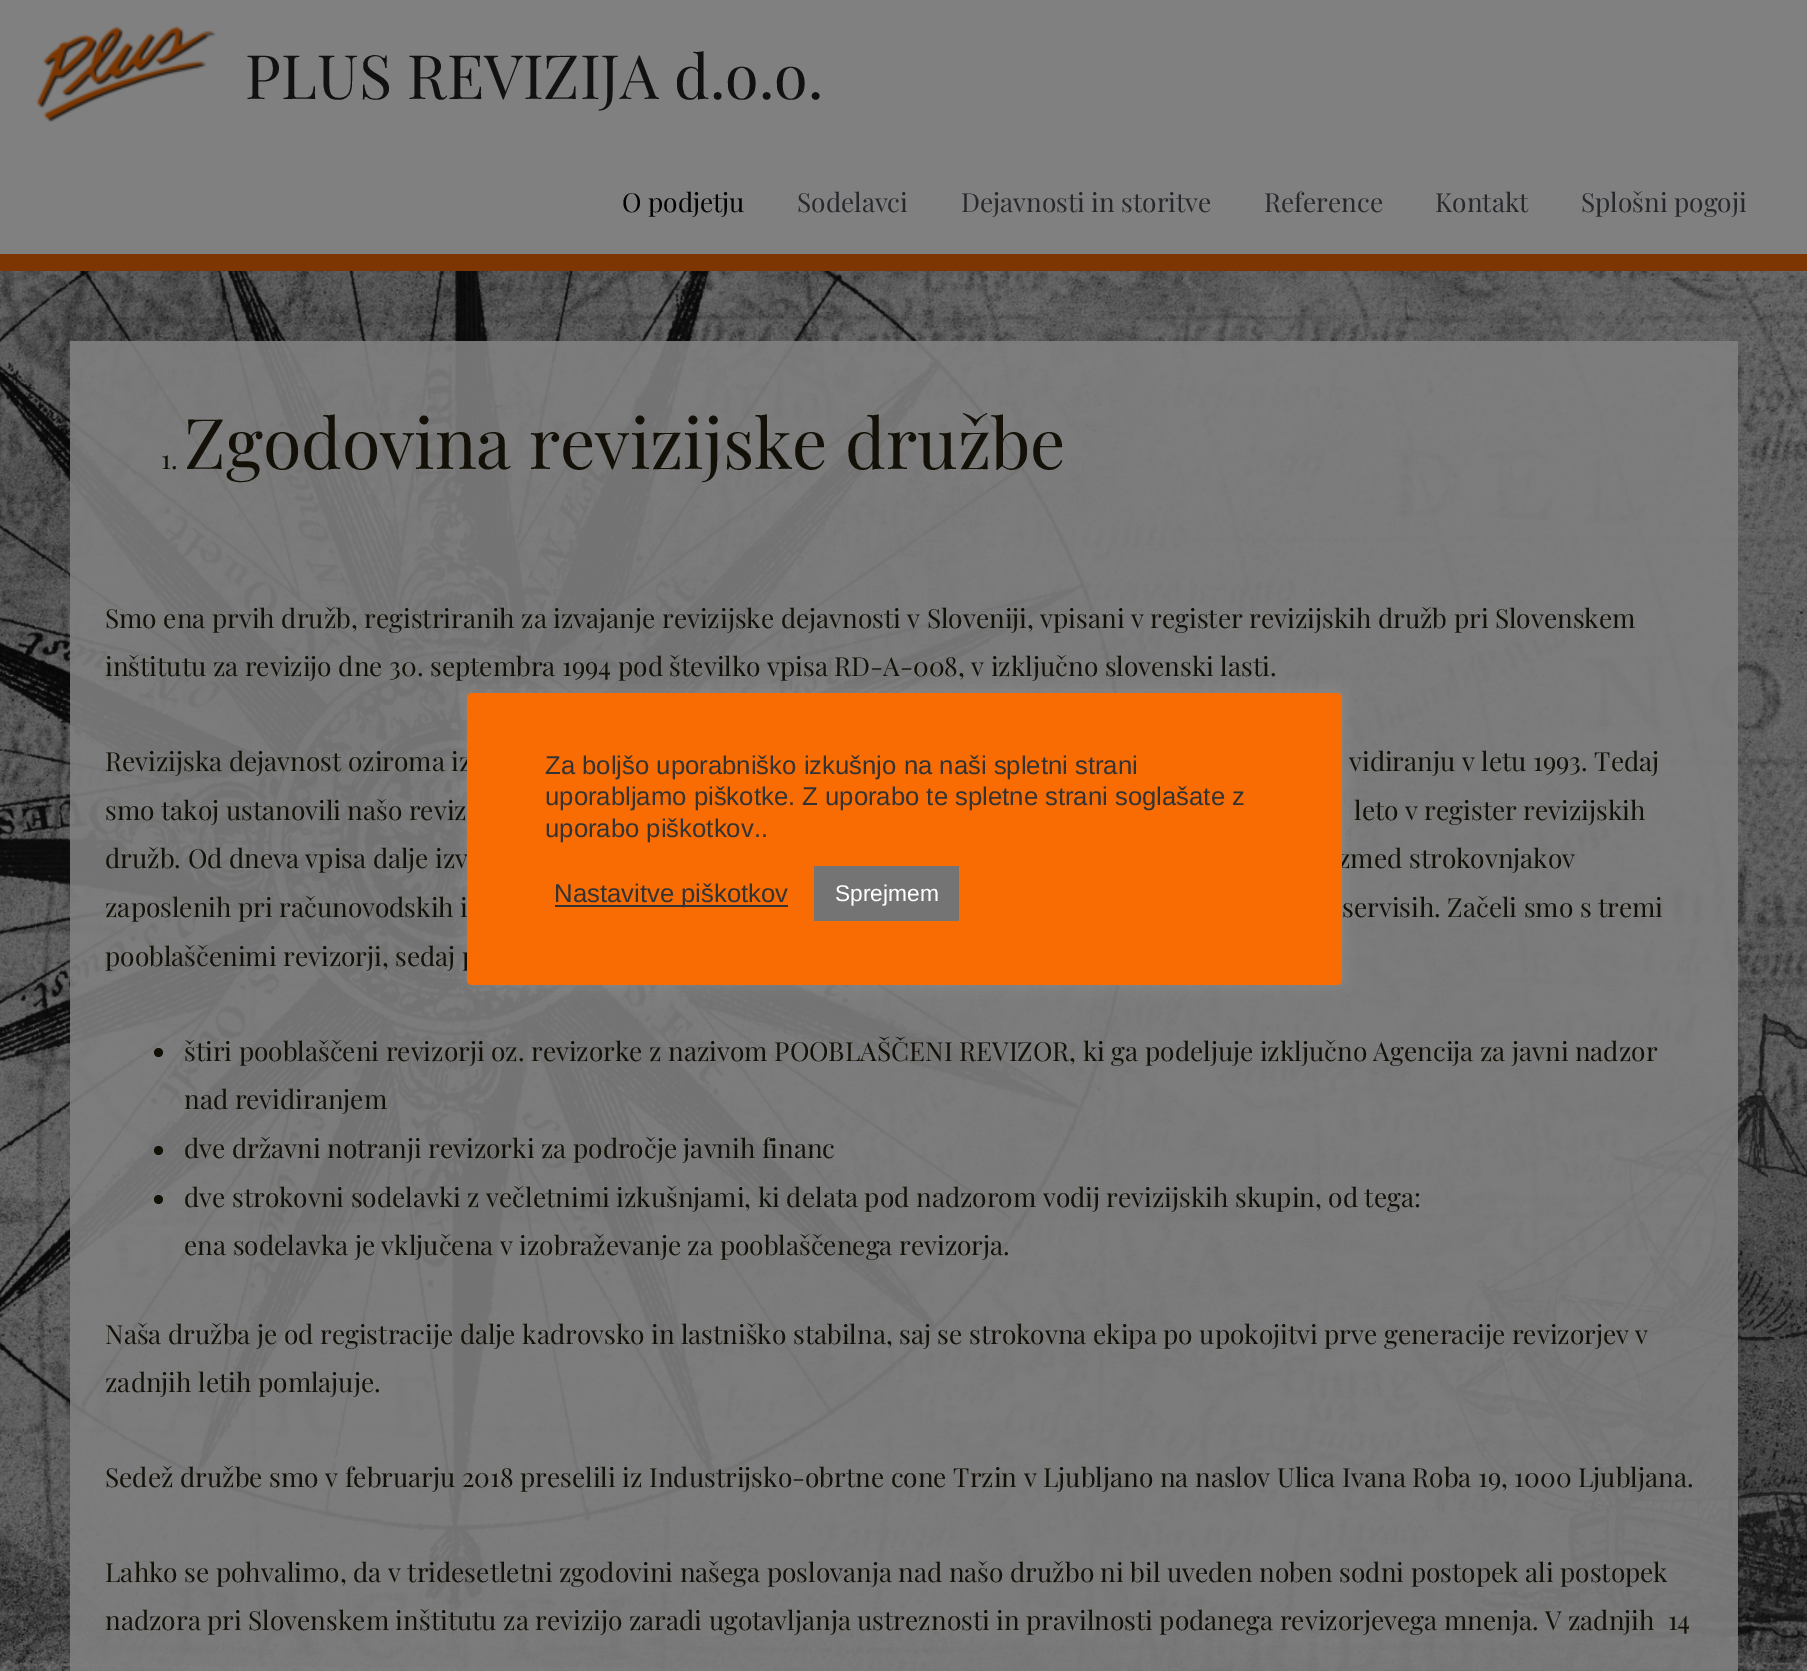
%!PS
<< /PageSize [1807 1671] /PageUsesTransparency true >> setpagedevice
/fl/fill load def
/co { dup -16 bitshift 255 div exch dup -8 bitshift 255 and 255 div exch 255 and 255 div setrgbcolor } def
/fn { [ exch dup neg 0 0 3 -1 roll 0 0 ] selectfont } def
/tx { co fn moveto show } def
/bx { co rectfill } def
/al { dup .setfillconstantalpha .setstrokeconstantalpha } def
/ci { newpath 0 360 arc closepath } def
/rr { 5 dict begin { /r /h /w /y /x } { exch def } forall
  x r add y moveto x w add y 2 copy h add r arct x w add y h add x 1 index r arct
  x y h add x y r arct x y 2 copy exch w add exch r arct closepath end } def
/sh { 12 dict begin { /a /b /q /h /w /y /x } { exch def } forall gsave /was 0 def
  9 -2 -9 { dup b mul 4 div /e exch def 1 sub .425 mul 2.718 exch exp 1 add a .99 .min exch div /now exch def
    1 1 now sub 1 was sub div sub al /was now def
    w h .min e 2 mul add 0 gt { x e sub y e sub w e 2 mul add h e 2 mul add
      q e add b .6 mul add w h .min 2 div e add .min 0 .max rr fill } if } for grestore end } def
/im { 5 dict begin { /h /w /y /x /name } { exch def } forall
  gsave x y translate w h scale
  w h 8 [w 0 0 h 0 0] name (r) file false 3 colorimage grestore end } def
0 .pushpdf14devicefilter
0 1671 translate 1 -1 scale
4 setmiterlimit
0 0 1807 1671 16#808080 bx
0 254 1807 17 16#7D3602 bx
(media/1.raw) 36 26 180 97 im
(media/2.raw) 0 271 1807 1400 im
0.89 al
70 341 1668 1330 16#808080 bx
1 al
16#131107 co
158.5 1052.5 4.5 ci fl
158.5 1150.5 4.5 ci fl
158.5 1199.5 4.5 ci fl
16#ACABAB co
467 691 875 293 5 9 .3 sh
(PLUS REVIZIJA d.o.o.) 245 99 /PlayfairDisplay-Regular 61.25 16#111111 tx
(O podjetju) 622 212 /PlayfairDisplay-Regular 26.25 16#000000 tx
(Sodelavci) 797 212 /PlayfairDisplay-Regular 26.25 16#26282C tx
(Dejavnosti in storitve) 961 212 /PlayfairDisplay-Regular 26.25 16#26282C tx
(Reference) 1264 212 /PlayfairDisplay-Regular 26.25 16#26282C tx
(Kontakt) 1435 212 /PlayfairDisplay-Regular 26.25 16#26282C tx
(Splošni pogoji) 1581 212 /PlayfairDisplay-Regular 26.25 16#26282C tx
(1.) 161 469 /PlayfairDisplay-Regular 26.25 16#131107 tx
(Zgodovina revizijske družbe) 184 469 /PlayfairDisplay-Regular 70 16#131107 tx
(Smo ena prvih družb, registriranih za izvajanje revizijske dejavnosti v Sloveniji, vpisani v register revizijskih družb pri Slovenskem) 105 628 /PlayfairDisplay-Regular 26.25 16#131107 tx
(inštitutu za revizijo dne 30. septembra 1994 pod številko vpisa RD-A-008, v izključno slovenski lasti.) 105 676 /PlayfairDisplay-Regular 26.25 16#131107 tx
(Revizijska dejavnost oziroma iz) 105 771 /PlayfairDisplay-Regular 26.25 16#131107 tx
(vidiranju v letu 1993. Tedaj) 1349 771 /PlayfairDisplay-Regular 26.25 16#131107 tx
(smo takoj ustanovili našo reviz) 105 820 /PlayfairDisplay-Regular 26.25 16#131107 tx
(leto v register revizijskih) 1354 820 /PlayfairDisplay-Regular 26.25 16#131107 tx
(družb. Od dneva vpisa dalje izv) 105 868 /PlayfairDisplay-Regular 26.25 16#131107 tx
(zmed strokovnjakov) 1338 868 /PlayfairDisplay-Regular 26.25 16#131107 tx
(zaposlenih pri računovodskih i) 105 917 /PlayfairDisplay-Regular 26.25 16#131107 tx
(servisih. Začeli smo s tremi) 1342 917 /PlayfairDisplay-Regular 26.25 16#131107 tx
(pooblaščenimi revizorji, sedaj p) 105 966 /PlayfairDisplay-Regular 26.25 16#131107 tx
(štiri pooblaščeni revizorji oz. revizorke z nazivom POOBLAŠČENI REVIZOR, ki ga podeljuje izključno Agencija za javni nadzor) 184 1061 /PlayfairDisplay-Regular 26.25 16#131107 tx
(nad revidiranjem) 184 1109 /PlayfairDisplay-Regular 26.25 16#131107 tx
(dve državni notranji revizorki za področje javnih financ) 184 1158 /PlayfairDisplay-Regular 26.25 16#131107 tx
(dve strokovni sodelavki z večletnimi izkušnjami, ki delata pod nadzorom vodij revizijskih skupin, od tega:) 184 1207 /PlayfairDisplay-Regular 26.25 16#131107 tx
(ena sodelavka je vključena v izobraževanje za pooblaščenega revizorja.) 184 1255 /PlayfairDisplay-Regular 26.25 16#131107 tx
(Naša družba je od registracije dalje kadrovsko in lastniško stabilna, saj se strokovna ekipa po upokojitvi prve generacije revizorjev v) 105 1344 /PlayfairDisplay-Regular 26.25 16#131107 tx
(zadnjih letih pomlajuje.) 105 1392 /PlayfairDisplay-Regular 26.25 16#131107 tx
(Sedež družbe smo v februarju 2018 preselili iz Industrijsko-obrtne cone Trzin v Ljubljano na naslov Ulica Ivana Roba 19, 1000 Ljubljana.) 105 1487 /PlayfairDisplay-Regular 26.25 16#131107 tx
(Lahko se pohvalimo, da v tridesetletni zgodovini našega poslovanja nad našo družbo ni bil uveden noben sodni postopek ali postopek) 105 1582 /PlayfairDisplay-Regular 26.25 16#131107 tx
(nadzora pri Slovenskem inštitutu za revizijo zaradi ugotavljanja ustreznosti in pravilnosti podanega revizorjevega mnenja. V zadnjih  14) 105 1630 /PlayfairDisplay-Regular 26.25 16#131107 tx
16#F96C03 co
467 693 875 292 5 rr fl
(Za boljšo uporabniško izkušnjo na naši spletni strani) 545 774 /LiberationSans-Regular 25.7 16#333333 tx
(uporabljamo piškotke. Z uporabo te spletne strani soglašate z) 545 805 /LiberationSans-Regular 25.7 16#333333 tx
(uporabo piškotkov..) 545 837 /LiberationSans-Regular 25.7 16#333333 tx
555 905 233 2 16#333333 bx
(Nastavitve piškotkov) 554 902 /LiberationSans-Regular 25.7 16#333333 tx
814 866 145 55 16#747474 bx
(Sprejmem) 835 901 /LiberationSans-Regular 22.75 16#FFFFFF tx
.poppdf14devicefilter showpage
